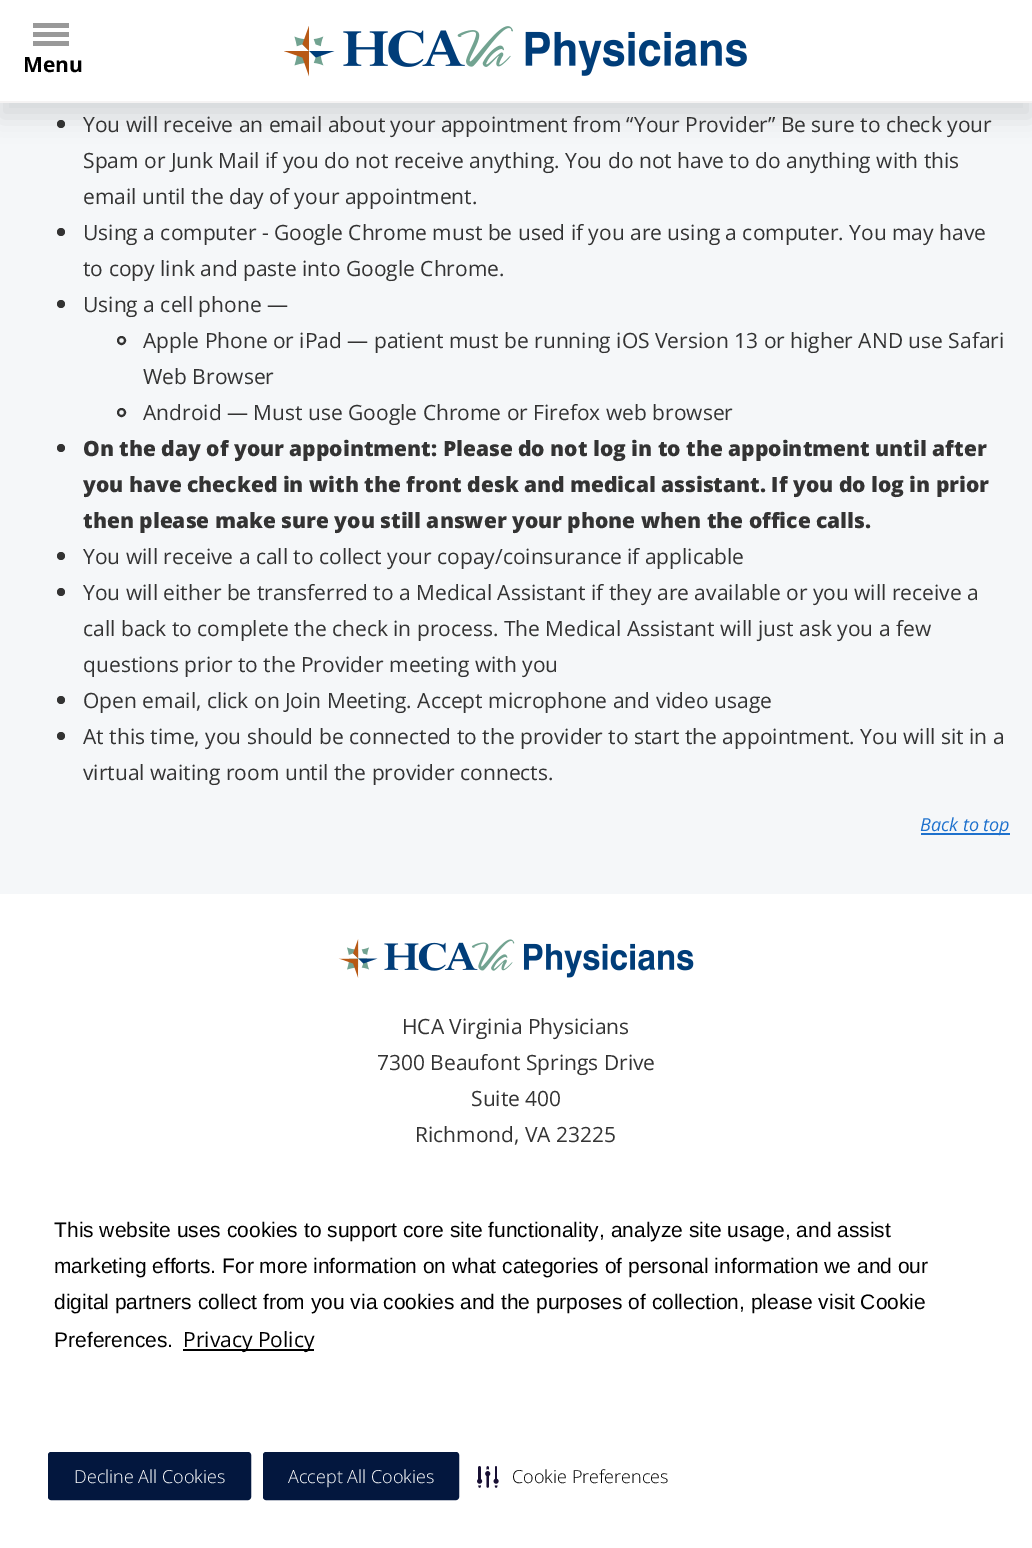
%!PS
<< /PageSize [1032 1548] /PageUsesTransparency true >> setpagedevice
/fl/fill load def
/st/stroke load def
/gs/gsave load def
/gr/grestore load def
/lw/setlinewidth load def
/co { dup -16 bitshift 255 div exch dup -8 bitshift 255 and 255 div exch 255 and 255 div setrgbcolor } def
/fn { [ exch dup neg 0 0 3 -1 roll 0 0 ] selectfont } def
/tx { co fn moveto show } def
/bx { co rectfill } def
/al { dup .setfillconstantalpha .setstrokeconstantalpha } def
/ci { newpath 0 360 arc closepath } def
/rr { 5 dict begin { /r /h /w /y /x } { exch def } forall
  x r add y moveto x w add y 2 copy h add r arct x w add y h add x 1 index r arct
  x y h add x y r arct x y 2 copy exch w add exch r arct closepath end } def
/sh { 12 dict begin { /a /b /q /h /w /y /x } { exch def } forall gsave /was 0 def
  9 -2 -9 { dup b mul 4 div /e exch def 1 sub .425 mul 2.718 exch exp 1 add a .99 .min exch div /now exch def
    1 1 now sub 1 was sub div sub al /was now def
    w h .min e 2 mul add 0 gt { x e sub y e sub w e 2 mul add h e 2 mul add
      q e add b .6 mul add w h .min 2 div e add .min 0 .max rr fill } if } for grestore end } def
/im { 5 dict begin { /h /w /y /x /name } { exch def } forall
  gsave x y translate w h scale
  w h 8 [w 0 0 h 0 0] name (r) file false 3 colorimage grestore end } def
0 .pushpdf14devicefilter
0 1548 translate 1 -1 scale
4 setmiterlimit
0 0 1032 1548 16#F5F7F9 bx
16#333333 co
61 124 4 ci fl
16#1F2532 co
0 15 1032 102 0 12 .15 sh
0 0 1032 101 16#FFFFFF bx
0 101 1032 2 16#F5F3F3 bx
33 23 36 5 16#999999 bx
33 32 36 5 16#999999 bx
33 41 36 5 16#999999 bx
(media/1.raw) 284 26 463 51 im
16#333333 co
61 232 4 ci fl
61 304 4 ci fl
2 lw
121.5 340.5 3.5 ci st
121.5 412.5 3.5 ci st
61 448 4 ci fl
61 556 4 ci fl
61 592 4 ci fl
61 700 4 ci fl
61 736 4 ci fl
921 833 89 2 16#1E71CD bx
0 894 1032 654 16#FFFFFF bx
(media/2.raw) 338 939 356 39 im
183 1349 131 2 16#000000 bx
16#03173E co
49 1453 201 46 2 rr gs fl gr
st
264 1453 194 46 2 rr gs fl gr
st
(media/3.raw) 477 1466 22 22 im
(Menu) 23 72 /OpenSans-Bold 21 16#000000 tx
(You will receive an email about your appointment from “Your Provider” Be sure to check your) 83 132 /OpenSans-Regular 21 16#333333 tx
(Spam or Junk Mail if you do not receive anything. You do not have to do anything with this) 83 168 /OpenSans-Regular 21 16#333333 tx
(email until the day of your appointment.) 83 204 /OpenSans-Regular 21 16#333333 tx
(Using a computer - Google Chrome must be used if you are using a computer. You may have) 83 240 /OpenSans-Regular 21 16#333333 tx
(to copy link and paste into Google Chrome.) 83 276 /OpenSans-Regular 21 16#333333 tx
(Using a cell phone —) 83 312 /OpenSans-Regular 21 16#333333 tx
(Apple Phone or iPad — patient must be running iOS Version 13 or higher AND use Safari) 143 348 /OpenSans-Regular 21 16#333333 tx
(Web Browser) 143 384 /OpenSans-Regular 21 16#333333 tx
(Android — Must use Google Chrome or Firefox web browser) 143 420 /OpenSans-Regular 21 16#333333 tx
(On the day of your appointment: Please do not log in to the appointment until after) 83 456 /OpenSans-ExtraBold 21 16#333333 tx
(you have checked in with the front desk and medical assistant. If you do log in prior) 83 492 /OpenSans-ExtraBold 21 16#333333 tx
(then please make sure you still answer your phone when the office calls.) 83 528 /OpenSans-ExtraBold 21 16#333333 tx
(You will receive a call to collect your copay/coinsurance if applicable) 83 564 /OpenSans-Regular 21 16#333333 tx
(You will either be transferred to a Medical Assistant if they are available or you will receive a) 83 600 /OpenSans-Regular 21 16#333333 tx
(call back to complete the check in process. The Medical Assistant will just ask you a few) 83 636 /OpenSans-Regular 21 16#333333 tx
(questions prior to the Provider meeting with you) 83 672 /OpenSans-Regular 21 16#333333 tx
(Open email, click on Join Meeting. Accept microphone and video usage) 83 708 /OpenSans-Regular 21 16#333333 tx
(At this time, you should be connected to the provider to start the appointment. You will sit in a) 83 744 /OpenSans-Regular 21 16#333333 tx
(virtual waiting room until the provider connects.) 83 780 /OpenSans-Regular 21 16#333333 tx
(Back to top) 920 831 /OpenSans-Italic 18 16#1E71CD tx
(HCA Virginia Physicians) 402 1034 /OpenSans-Regular 21 16#333333 tx
(7300 Beaufont Springs Drive) 377 1070 /OpenSans-Regular 21 16#333333 tx
(Suite 400) 471 1106 /OpenSans-Regular 21 16#333333 tx
(Richmond, VA 23225) 415 1142 /OpenSans-Regular 21 16#333333 tx
(This website uses cookies to support core site functionality, analyze site usage, and assist) 54 1237 /LiberationSans-Regular 21 16#000000 tx
(marketing efforts. For more information on what categories of personal information we and our) 54 1273 /LiberationSans-Regular 21 16#000000 tx
(digital partners collect from you via cookies and the purposes of collection, please visit Cookie) 54 1309 /LiberationSans-Regular 21 16#000000 tx
(Preferences.) 54 1347 /LiberationSans-Regular 21 16#000000 tx
(Privacy Policy) 183 1347 /OpenSans-Regular 21 16#000000 tx
(Decline All Cookies) 74 1483 /OpenSans-Light 18 16#FFFFFF tx
(Accept All Cookies) 288 1483 /OpenSans-Light 18 16#FFFFFF tx
(Cookie Preferences) 512 1483 /OpenSans-Light 18 16#000000 tx
.poppdf14devicefilter showpage
